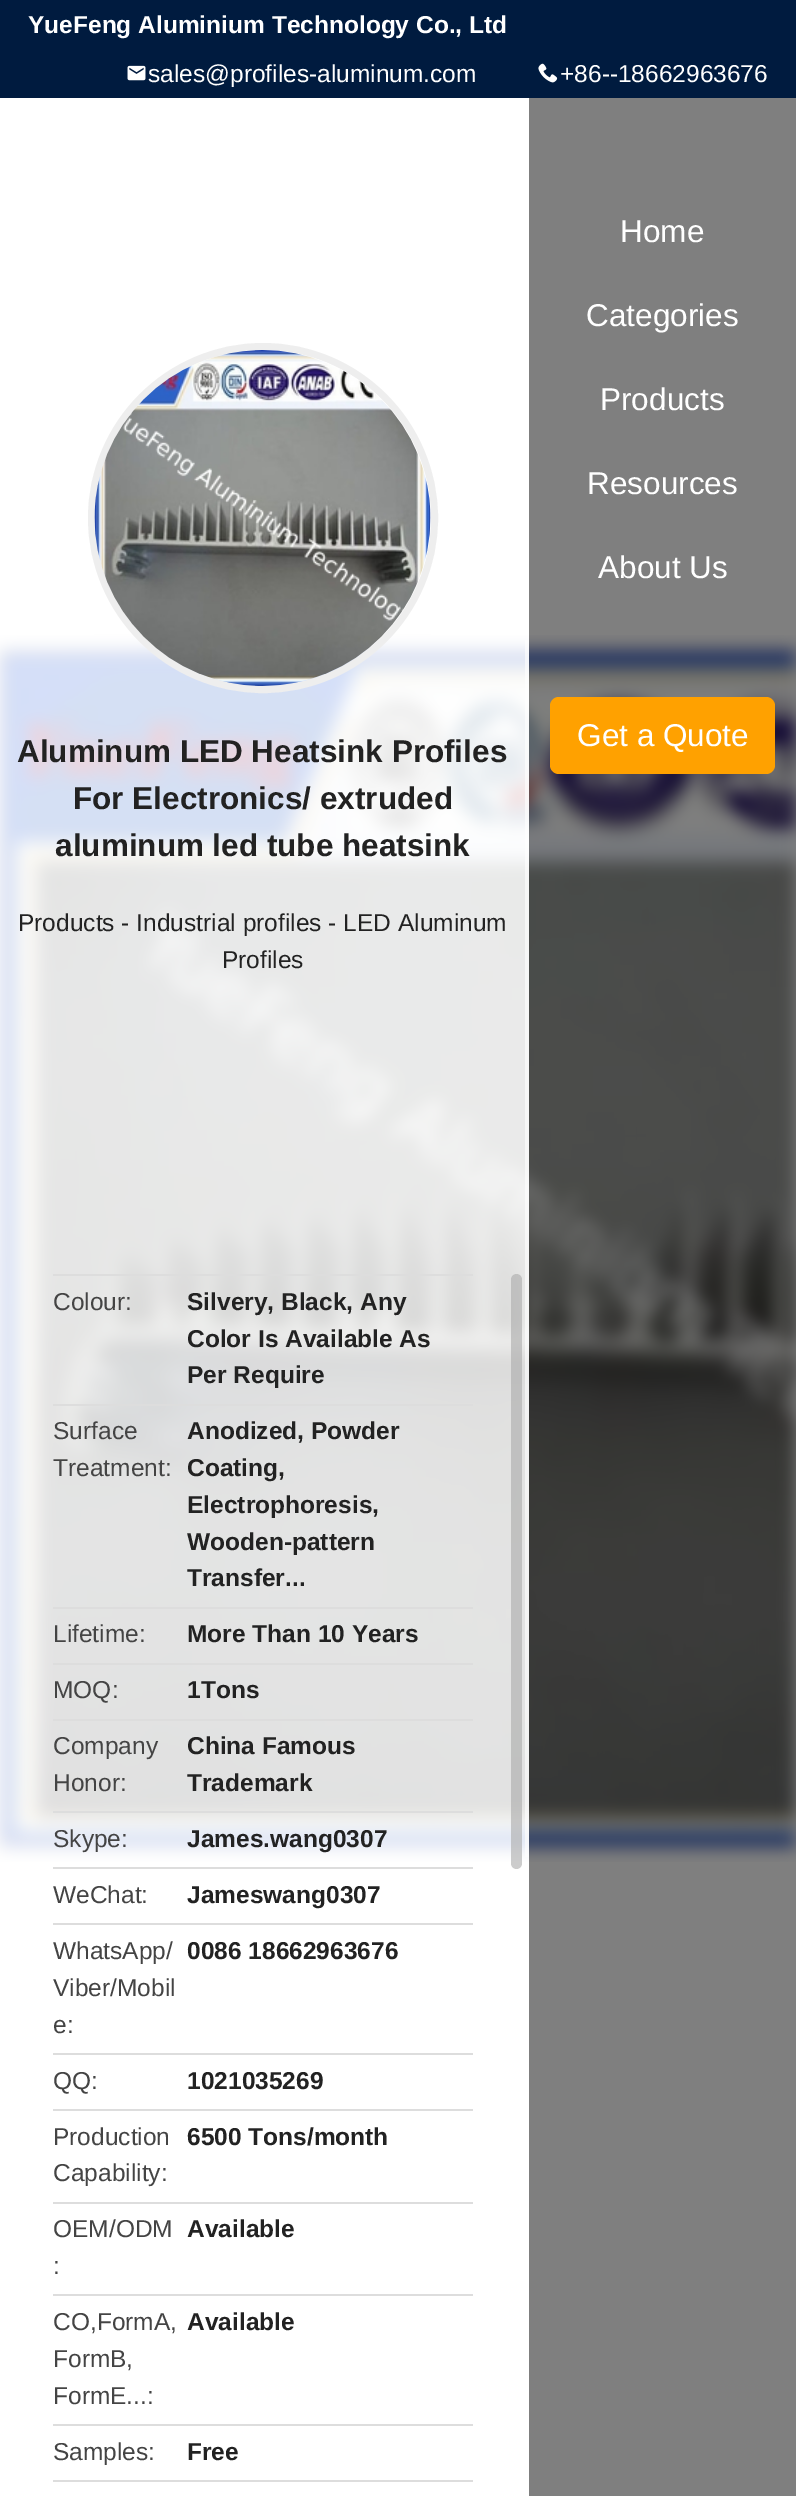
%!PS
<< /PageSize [796 2496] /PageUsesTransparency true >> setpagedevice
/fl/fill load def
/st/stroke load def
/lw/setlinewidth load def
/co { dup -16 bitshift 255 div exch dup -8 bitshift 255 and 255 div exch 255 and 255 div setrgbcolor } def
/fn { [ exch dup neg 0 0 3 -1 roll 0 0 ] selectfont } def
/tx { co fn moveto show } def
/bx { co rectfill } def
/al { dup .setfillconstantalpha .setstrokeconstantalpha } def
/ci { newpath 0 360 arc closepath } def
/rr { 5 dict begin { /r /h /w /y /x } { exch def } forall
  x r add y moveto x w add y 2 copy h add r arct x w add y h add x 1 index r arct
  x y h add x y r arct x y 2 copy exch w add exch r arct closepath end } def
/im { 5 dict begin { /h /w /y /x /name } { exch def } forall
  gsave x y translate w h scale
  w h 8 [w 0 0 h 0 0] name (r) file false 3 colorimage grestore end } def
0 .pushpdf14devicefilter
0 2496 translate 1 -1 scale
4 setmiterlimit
0 0 796 2496 16#FFFFFF bx
0 0 796 98 16#001B3F bx
(media/1.raw) 127 65 19 16 im
(media/2.raw) 538 63 20 20 im
(media/3.raw) 0 635 796 1227 im
0.5 al
529 98 267 2398 16#000000 bx
1 al
16#FFA100 co
550 697 225 77 9 rr fl
0.8 al
0 635 529 1227 16#FFFFFF bx
0.6 al
525 640 4 1217 16#FFFFFF bx
1 al
16#EEEEEE co
7 lw
263 518 171.5 ci st
(media/4.raw) 94 350 337 336 im
53 1274 420 2 16#DDDDDD bx
53 1404 420 2 16#DDDDDD bx
53 1607 420 2 16#DDDDDD bx
53 1663 420 2 16#DDDDDD bx
53 1719 420 2 16#DDDDDD bx
53 1811 420 2 16#DDDDDD bx
53 1867 420 2 16#DDDDDD bx
53 1923 420 2 16#DDDDDD bx
53 2053 420 2 16#DDDDDD bx
53 2109 420 2 16#DDDDDD bx
53 2202 420 2 16#DDDDDD bx
53 2294 420 2 16#DDDDDD bx
53 2424 420 2 16#DDDDDD bx
53 2480 420 2 16#DDDDDD bx
0.6 al
16#AAAAAA co
511 1274 11 595 5.5 rr fl
1 al
(YueFeng Aluminium Technology Co., Ltd) 28 33 /LiberationSans-Bold 24.5 16#FFFFFF tx
(sales@profiles-aluminum.com) 148 82 /LiberationSans-Regular 24.5 16#FFFFFF tx
(+86--18662963676) 560 82 /LiberationSans-Regular 24.5 16#FFFFFF tx
(Home) 620 242 /LiberationSans-Regular 31.5 16#FFFFFF tx
(Categories) 586 326 /LiberationSans-Regular 31.5 16#FFFFFF tx
(Products) 600 410 /LiberationSans-Regular 31.5 16#FFFFFF tx
(Resources) 587 494 /LiberationSans-Regular 31.5 16#FFFFFF tx
(About Us) 598 578 /LiberationSans-Regular 31.5 16#FFFFFF tx
(Get a Quote) 577 746 /LiberationSans-Regular 31.5 16#FFFFFF tx
(Aluminum LED Heatsink Profiles) 17 762 /LiberationSans-Bold 31.5 16#222222 tx
(For Electronics/ extruded) 73 809 /LiberationSans-Bold 31.5 16#222222 tx
(aluminum led tube heatsink) 55 856 /LiberationSans-Bold 31.5 16#222222 tx
(Products - Industrial profiles - LED Aluminum) 18 931 /LiberationSans-Regular 24.5 16#222222 tx
(Profiles) 222 968 /LiberationSans-Regular 24.5 16#222222 tx
(Colour:) 53 1310 /LiberationSans-Regular 24.5 16#444444 tx
(Silvery, Black, Any) 187 1310 /LiberationSans-Bold 24.5 16#222222 tx
(Color Is Available As) 187 1347 /LiberationSans-Bold 24.5 16#222222 tx
(Per Require) 187 1383 /LiberationSans-Bold 24.5 16#222222 tx
(Surface) 53 1439 /LiberationSans-Regular 24.5 16#444444 tx
(Treatment:) 53 1476 /LiberationSans-Regular 24.5 16#444444 tx
(Anodized, Powder) 187 1439 /LiberationSans-Bold 24.5 16#222222 tx
(Coating,) 187 1476 /LiberationSans-Bold 24.5 16#222222 tx
(Electrophoresis,) 187 1513 /LiberationSans-Bold 24.5 16#222222 tx
(Wooden-pattern) 187 1550 /LiberationSans-Bold 24.5 16#222222 tx
(Transfer...) 187 1586 /LiberationSans-Bold 24.5 16#222222 tx
(Lifetime:) 53 1642 /LiberationSans-Regular 24.5 16#444444 tx
(More Than 10 Years) 187 1642 /LiberationSans-Bold 24.5 16#222222 tx
(MOQ:) 53 1698 /LiberationSans-Regular 24.5 16#444444 tx
(1Tons) 187 1698 /LiberationSans-Bold 24.5 16#222222 tx
(Company) 53 1754 /LiberationSans-Regular 24.5 16#444444 tx
(Honor:) 53 1791 /LiberationSans-Regular 24.5 16#444444 tx
(China Famous) 187 1754 /LiberationSans-Bold 24.5 16#222222 tx
(Trademark) 187 1791 /LiberationSans-Bold 24.5 16#222222 tx
(Skype:) 53 1847 /LiberationSans-Regular 24.5 16#444444 tx
(James.wang0307) 187 1847 /LiberationSans-Bold 24.5 16#222222 tx
(WeChat:) 53 1903 /LiberationSans-Regular 24.5 16#444444 tx
(Jameswang0307) 187 1903 /LiberationSans-Bold 24.5 16#222222 tx
(WhatsApp/) 53 1959 /LiberationSans-Regular 24.5 16#444444 tx
(Viber/Mobil) 53 1996 /LiberationSans-Regular 24.5 16#444444 tx
(e:) 53 2033 /LiberationSans-Regular 24.5 16#444444 tx
(0086 18662963676) 187 1959 /LiberationSans-Bold 24.5 16#222222 tx
(QQ:) 53 2089 /LiberationSans-Regular 24.5 16#444444 tx
(1021035269) 187 2089 /LiberationSans-Bold 24.5 16#222222 tx
(Production) 53 2145 /LiberationSans-Regular 24.5 16#444444 tx
(Capability:) 53 2181 /LiberationSans-Regular 24.5 16#444444 tx
(6500 Tons/month) 187 2145 /LiberationSans-Bold 24.5 16#222222 tx
(OEM/ODM) 53 2237 /LiberationSans-Regular 24.5 16#444444 tx
(:) 53 2274 /LiberationSans-Regular 24.5 16#444444 tx
(Available) 187 2237 /LiberationSans-Bold 24.5 16#222222 tx
(CO,FormA,) 53 2330 /LiberationSans-Regular 24.5 16#444444 tx
(FormB,) 53 2367 /LiberationSans-Regular 24.5 16#444444 tx
(FormE...:) 53 2404 /LiberationSans-Regular 24.5 16#444444 tx
(Available) 187 2330 /LiberationSans-Bold 24.5 16#222222 tx
(Samples:) 53 2460 /LiberationSans-Regular 24.5 16#444444 tx
(Free) 187 2460 /LiberationSans-Bold 24.5 16#222222 tx
.poppdf14devicefilter showpage
